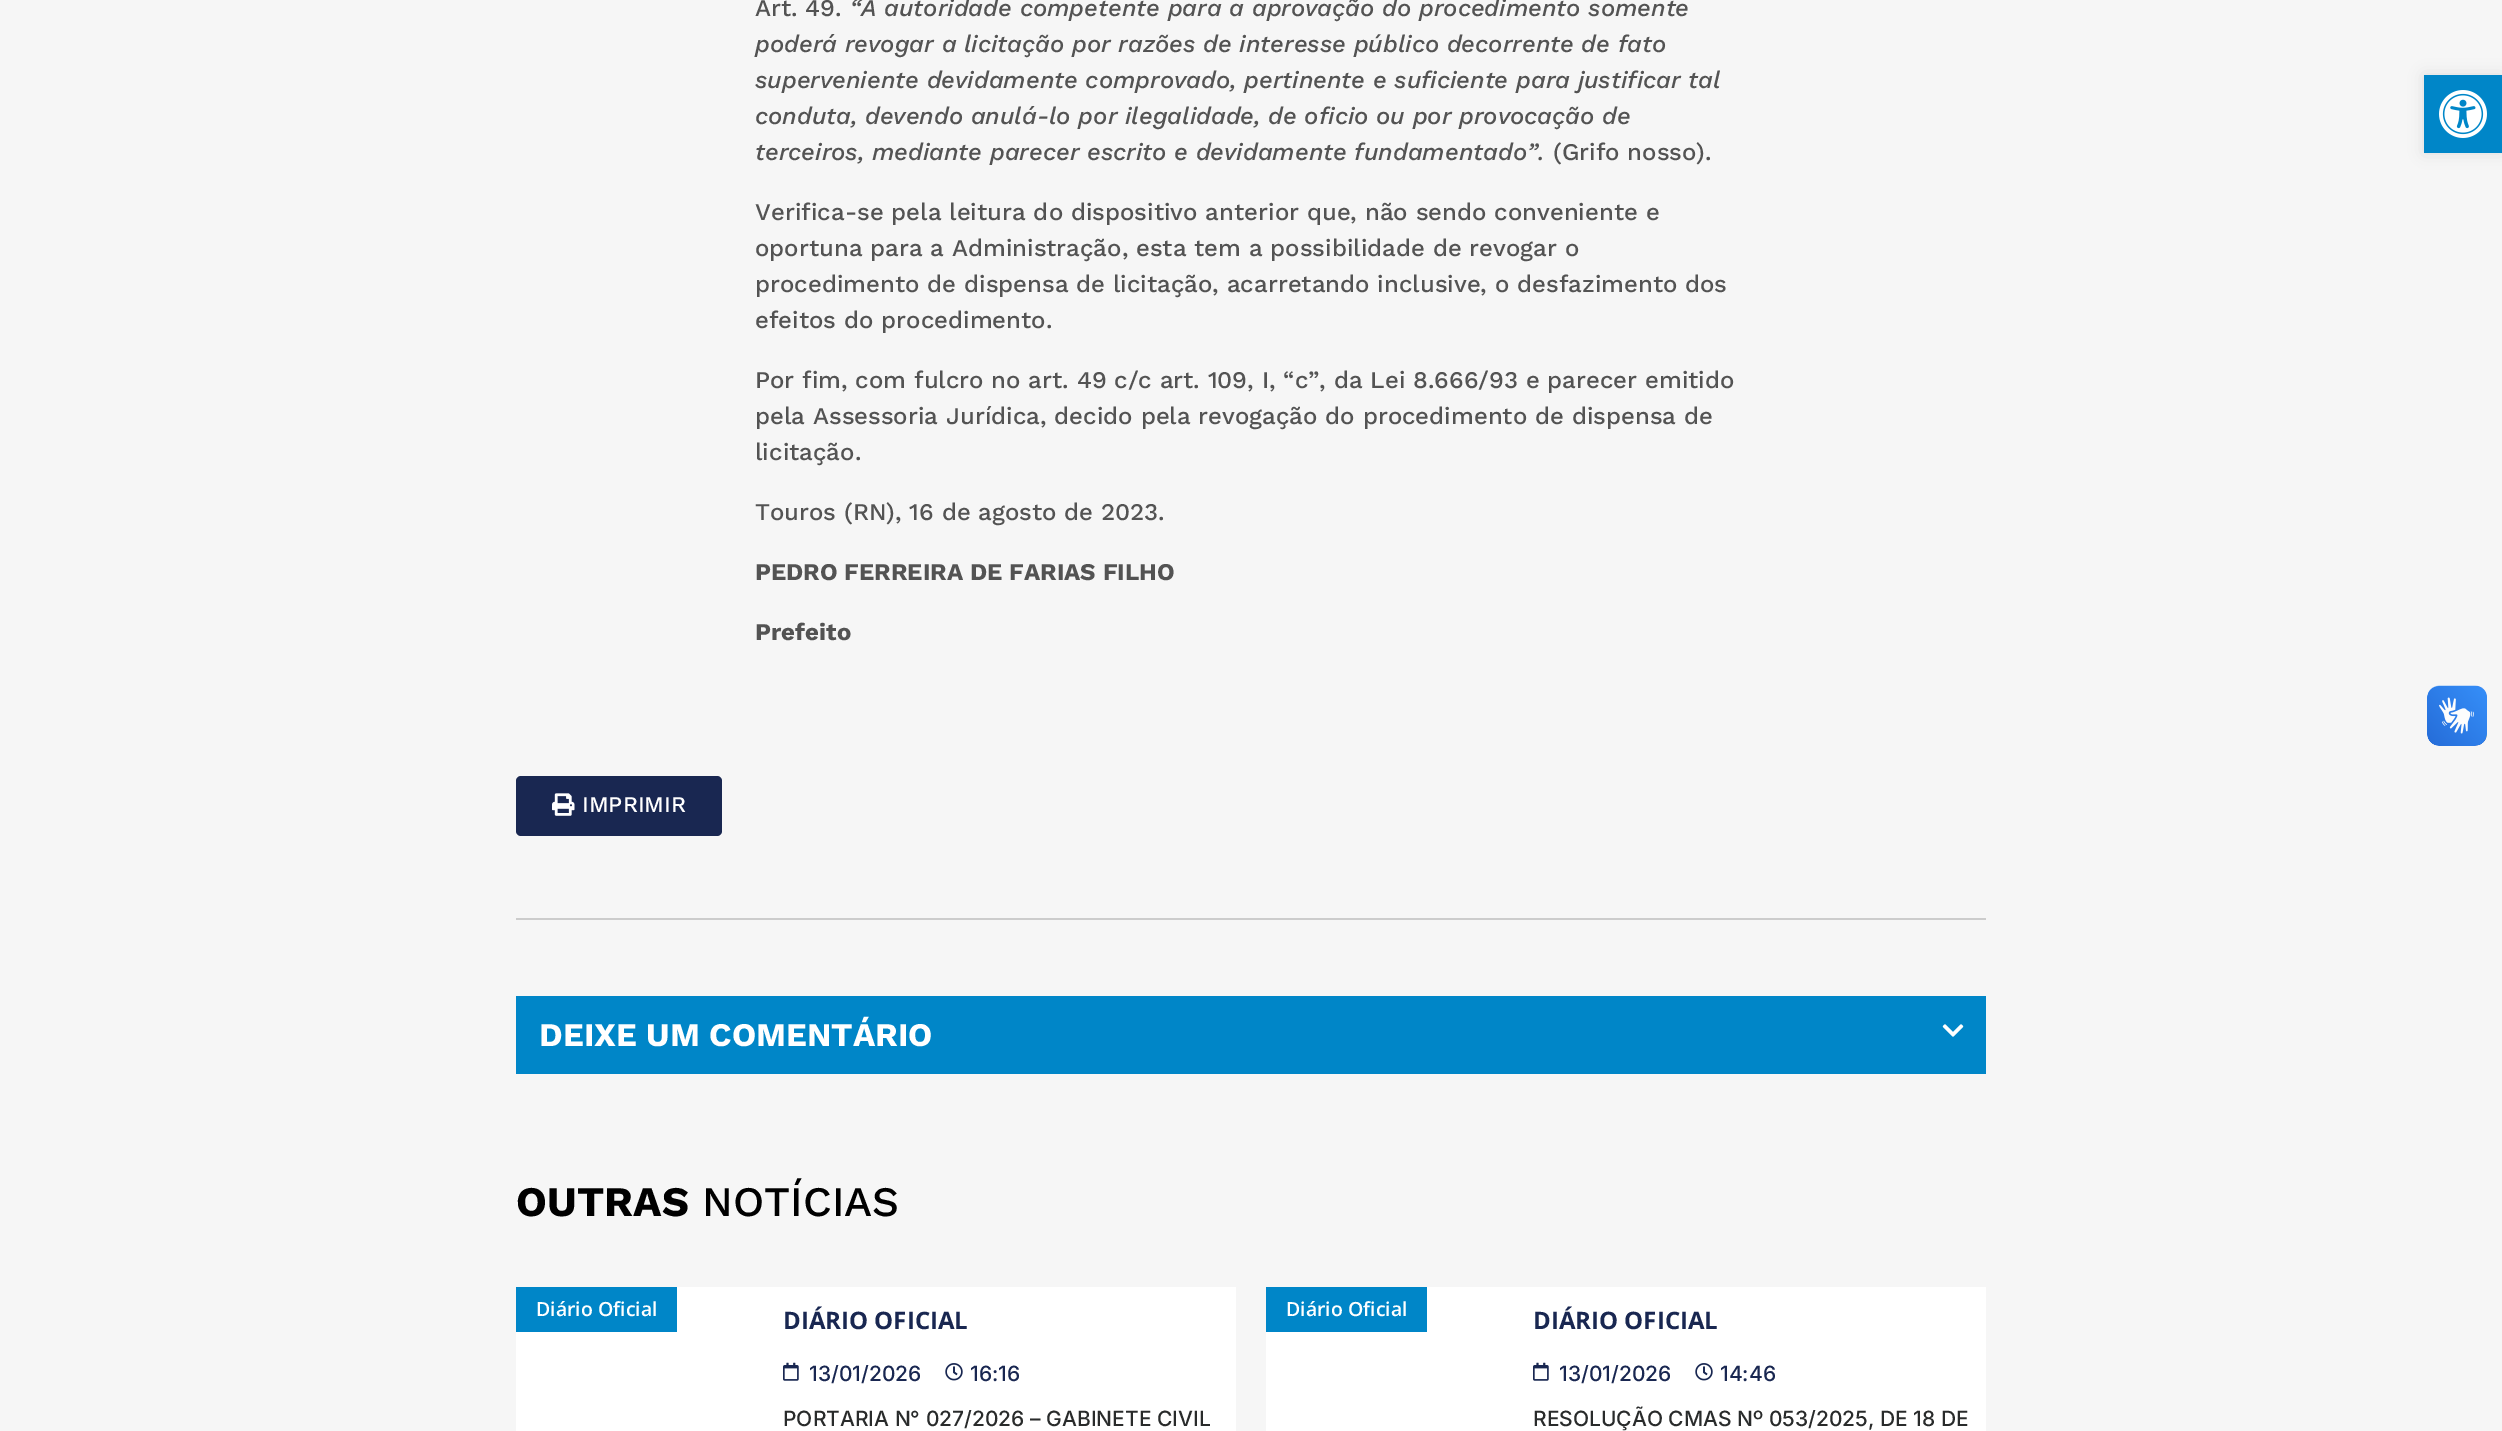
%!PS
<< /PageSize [2502 1431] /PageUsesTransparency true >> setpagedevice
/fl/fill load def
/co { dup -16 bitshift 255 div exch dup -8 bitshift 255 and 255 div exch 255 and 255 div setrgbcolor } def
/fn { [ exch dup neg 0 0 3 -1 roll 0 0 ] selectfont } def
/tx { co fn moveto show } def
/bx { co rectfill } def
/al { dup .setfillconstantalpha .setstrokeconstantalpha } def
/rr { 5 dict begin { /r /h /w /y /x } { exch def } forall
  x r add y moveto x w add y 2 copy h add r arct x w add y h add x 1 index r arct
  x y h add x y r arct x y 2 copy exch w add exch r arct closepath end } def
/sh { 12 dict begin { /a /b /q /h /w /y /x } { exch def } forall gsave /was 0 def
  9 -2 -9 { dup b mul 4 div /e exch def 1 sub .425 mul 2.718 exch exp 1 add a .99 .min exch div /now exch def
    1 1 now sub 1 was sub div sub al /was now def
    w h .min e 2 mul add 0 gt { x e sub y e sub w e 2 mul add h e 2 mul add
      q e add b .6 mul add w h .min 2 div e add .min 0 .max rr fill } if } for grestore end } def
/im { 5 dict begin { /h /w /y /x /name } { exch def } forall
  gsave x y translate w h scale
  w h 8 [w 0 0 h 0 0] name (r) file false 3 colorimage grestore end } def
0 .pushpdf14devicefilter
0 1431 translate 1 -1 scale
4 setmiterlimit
0 0 2502 1431 16#F6F6F6 bx
16#192751 co
516 776 206 60 5 rr fl
(media/1.raw) 552 793 23 23 im
516 918 1470 2 16#CCCCCC bx
516 996 1470 78 16#0086C8 bx
(media/2.raw) 1942 1024 22 13 im
516 1287 720 144 16#FFFFFF bx
516 1287 161 45 16#0086C8 bx
(media/3.raw) 783 1362 16 19 im
(media/4.raw) 945 1363 18 18 im
1266 1287 720 144 16#FFFFFF bx
1266 1287 161 45 16#0086C8 bx
(media/3.raw) 1533 1362 16 19 im
(media/4.raw) 1695 1363 18 18 im
16#000000 co
2424 75 78 78 0 7.5 .1 sh
2424 75 78 78 16#0086C8 bx
(media/5.raw) 2439 90 48 48 im
(media/6.raw) 2427 685 60 61 im
(media/7.raw) 2427 686 60 60 im
(Art. 49.) 755 16 /WorkSans-Medium 24 16#535353 tx
(“A autoridade competente para a aprovação do procedimento somente) 850 16 /WorkSans-MediumItalic 24 16#535353 tx
(poderá revogar a licitação por razões de interesse público decorrente de fato) 755 52 /WorkSans-MediumItalic 24 16#535353 tx
(superveniente devidamente comprovado, pertinente e suficiente para justificar tal) 755 88 /WorkSans-MediumItalic 24 16#535353 tx
(conduta, devendo anulá-lo por ilegalidade, de oficio ou por provocação de) 755 124 /WorkSans-MediumItalic 24 16#535353 tx
(terceiros, mediante parecer escrito e devidamente fundamentado”.) 755 160 /WorkSans-MediumItalic 24 16#535353 tx
(\(Grifo nosso\).) 1553 160 /WorkSans-Medium 24 16#535353 tx
(Verifica-se pela leitura do dispositivo anterior que, não sendo conveniente e) 755 220 /WorkSans-Medium 24 16#535353 tx
(oportuna para a Administração, esta tem a possibilidade de revogar o) 755 256 /WorkSans-Medium 24 16#535353 tx
(procedimento de dispensa de licitação, acarretando inclusive, o desfazimento dos) 755 292 /WorkSans-Medium 24 16#535353 tx
(efeitos do procedimento.) 755 328 /WorkSans-Medium 24 16#535353 tx
(Por fim, com fulcro no art. 49 c/c art. 109, I, “c”, da Lei 8.666/93 e parecer emitido) 755 388 /WorkSans-Medium 24 16#535353 tx
(pela Assessoria Jurídica, decido pela revogação do procedimento de dispensa de) 755 424 /WorkSans-Medium 24 16#535353 tx
(licitação.) 755 460 /WorkSans-Medium 24 16#535353 tx
(Touros \(RN\), 16 de agosto de 2023.) 755 520 /WorkSans-Medium 24 16#535353 tx
(PEDRO FERREIRA DE FARIAS FILHO) 755 580 /WorkSans-Bold 24 16#535353 tx
(Prefeito) 755 640 /WorkSans-Bold 24 16#535353 tx
(IMPRIMIR) 582 812 /WorkSans-Medium 22.5 16#FFFFFF tx
(DEIXE UM COMENTÁRIO) 539 1046 /WorkSans-Bold 33 16#FFFFFF tx
(OUTRAS) 516 1216 /WorkSans-Bold 42 16#000000 tx
(NOTÍCIAS) 702 1216 /WorkSans-Medium 42 16#000000 tx
(Diário Oficial) 536 1316 /OpenSans-SemiBold 19.5 16#FFFFFF tx
(DIÁRIO OFICIAL) 783 1329 /OpenSans-Bold 24 16#192751 tx
(13/01/2026) 809 1381 /Inter-Medium 21 16#192751 tx
(16:16) 970 1381 /Inter-Medium 21 16#192751 tx
(PORTARIA N° 027/2026 – GABINETE CIVIL) 783 1426 /Inter-Medium 21 16#292B2B tx
(Diário Oficial) 1286 1316 /OpenSans-SemiBold 19.5 16#FFFFFF tx
(DIÁRIO OFICIAL) 1533 1329 /OpenSans-Bold 24 16#192751 tx
(13/01/2026) 1559 1381 /Inter-Medium 21 16#192751 tx
(14:46) 1720 1381 /Inter-Medium 21 16#192751 tx
(RESOLUÇÃO CMAS Nº 053/2025, DE 18 DE) 1533 1426 /Inter-Medium 21 16#292B2B tx
.poppdf14devicefilter showpage
